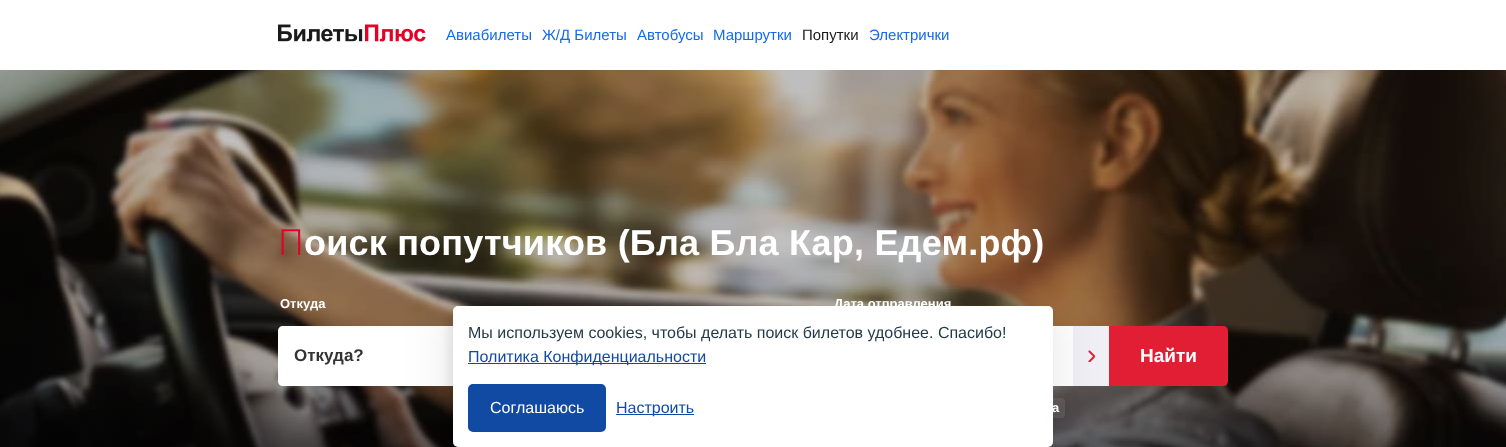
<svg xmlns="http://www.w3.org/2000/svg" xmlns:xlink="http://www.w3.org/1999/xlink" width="1506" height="447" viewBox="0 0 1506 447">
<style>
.cls-1{font:15px Liberation Sans;fill:#146aec}
.cls-2{font:15px Liberation Sans;fill:#1a1a1a}
.cls-3{font:300 36px Noto Sans;letter-spacing:0.2px;fill:#e50026}
.cls-4{font:bold 36px Liberation Sans;letter-spacing:0.2px;fill:#ffffff}
.cls-5{font:bold 13px Liberation Sans;fill:#ffffff}
.cls-6{font:bold 17px Liberation Sans;fill:#333333}
.cls-7{font:bold 19px Liberation Sans;fill:#ffffff}
.cls-8{font:16px Liberation Sans;fill:#253b48}
.cls-9{font:16px Liberation Sans;fill:#104aa3}
.cls-10{font:16px Liberation Sans;fill:#ffffff}
</style>
<rect width="100%" height="100%" fill="#ffffff"/>
<image xlink:href="image0.png" x="278" y="24" width="148" height="18"/>
<image xlink:href="image1.png" x="0" y="70" width="1506" height="377"/>
<path fill="#ffffff" d="M283 326H555V386H283C280 386 278 384 278 381V331C278 328 280 326 283 326Z"/>
<rect fill="#ffffff" x="1053" y="326" width="20" height="60"/>
<rect fill="#ffffff" fill-opacity="0.1" x="970" y="398" width="95" height="20" rx="4"/>
<rect fill="#efeff5" x="1073" y="326" width="36" height="60"/>
<image xlink:href="image2.png" x="1088" y="350" width="7" height="12"/>
<path fill="#e21e35" d="M1109 326H1223C1226 326 1228 328 1228 331V381C1228 384 1226 386 1223 386H1109Z"/>
<rect fill="#000000" fill-opacity="0.1" filter="blur(25px)" x="453" y="306" width="600" height="141" rx="5"/>
<rect fill="#000000" fill-opacity="0.07" filter="blur(5px)" x="448" y="311" width="600" height="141" rx="5"/>
<rect fill="#ffffff" x="453" y="306" width="600" height="141" rx="5"/>
<rect fill="#104aa3" x="468" y="363" width="238" height="1"/>
<rect fill="#104aa3" stroke="#104aa3" stroke-width="2" x="469" y="385" width="136" height="46" rx="4"/>
<rect fill="#104aa3" x="616" y="414" width="78" height="1"/>
<text class="cls-1" x="446" y="40">Авиабилеты</text>
<text class="cls-1" x="542" y="40">Ж/Д Билеты</text>
<text class="cls-1" x="637" y="40">Автобусы</text>
<text class="cls-1" x="713" y="40">Маршрутки</text>
<text class="cls-2" x="802" y="40">Попутки</text>
<text class="cls-1" x="869" y="40">Электрички</text>
<text class="cls-3" x="278" y="255">П</text>
<text class="cls-4" x="304" y="255">оиск попутчиков (Бла Бла Кар, Едем.рф)</text>
<text class="cls-5" x="280" y="308">Откуда</text>
<text class="cls-6" x="294" y="361">Откуда?</text>
<text class="cls-5" x="834" y="308">Дата отправления</text>
<text class="cls-5" x="1052" y="412">а</text>
<text class="cls-7" x="1140" y="362">Найти</text>
<text class="cls-8" x="468" y="338">Мы используем cookies, чтобы делать поиск билетов удобнее. Спасибо!</text>
<text class="cls-9" x="468" y="362">Политика Конфиденциальности</text>
<text class="cls-10" x="490" y="413">Соглашаюсь</text>
<text class="cls-9" x="616" y="413">Настроить</text>
</svg>
